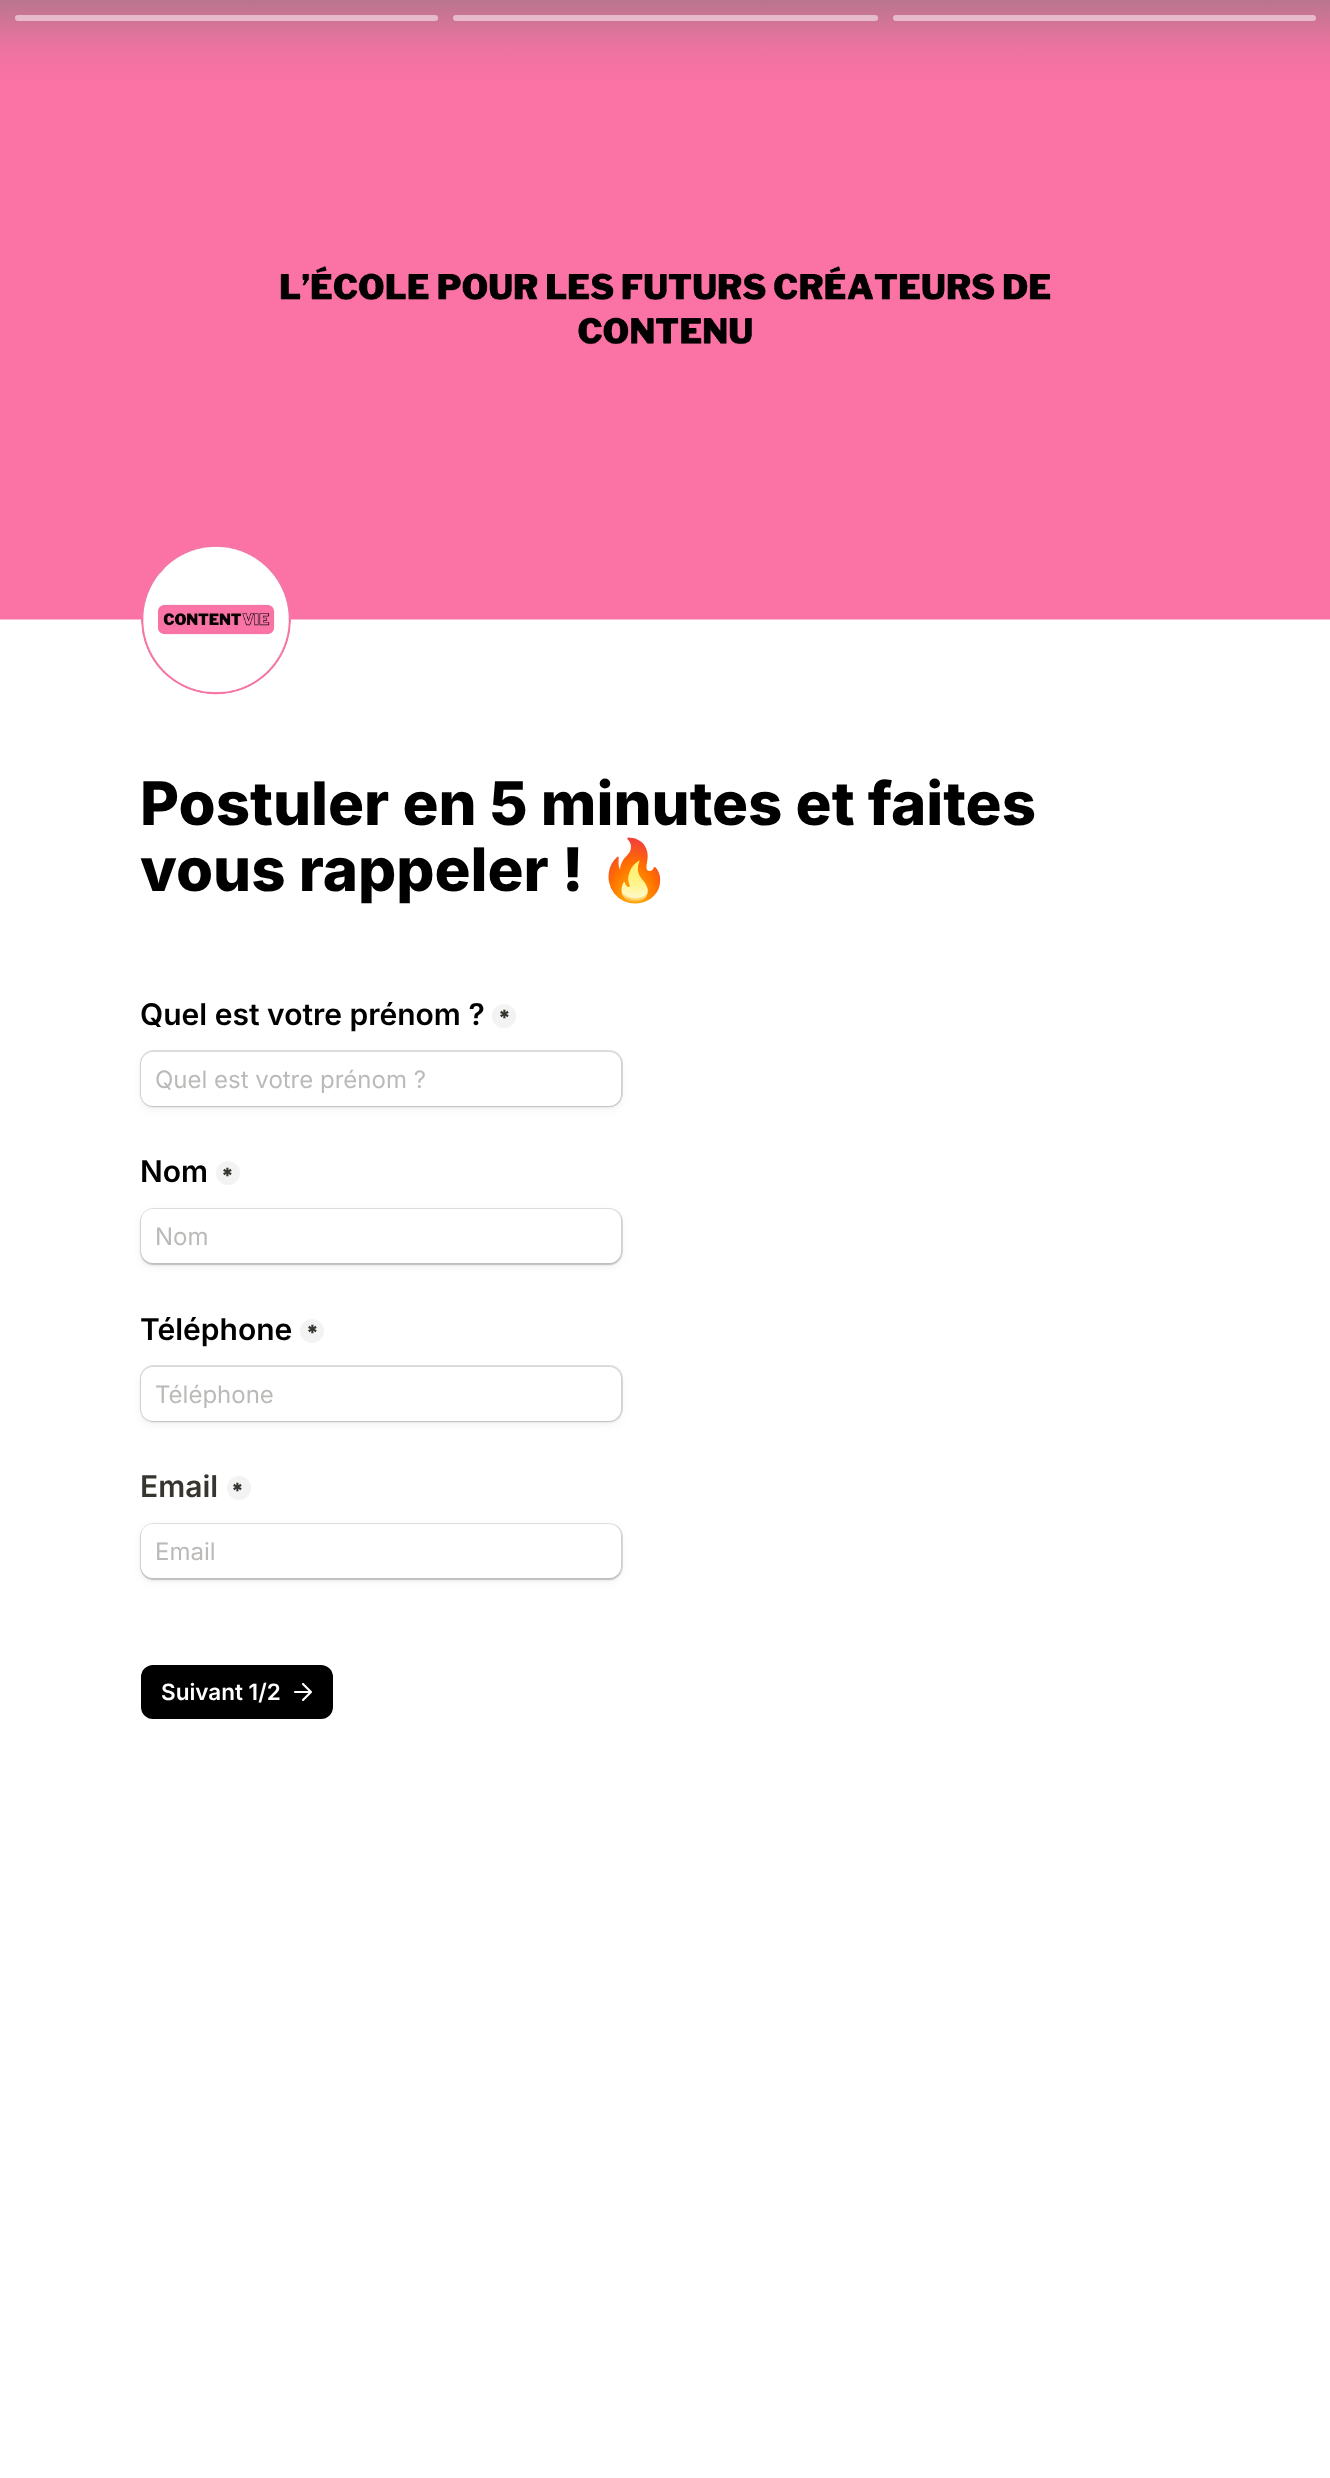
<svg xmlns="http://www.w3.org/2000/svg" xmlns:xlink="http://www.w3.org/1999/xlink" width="1330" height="2478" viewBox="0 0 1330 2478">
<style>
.cls-1{font:800 60px Inter;fill:#000000}
.cls-2{font:bold 60px Noto Color Emoji;fill:#000000}
.cls-3{font:600 30px Inter;fill:#000000}
.cls-4{font:900 21px Inter;fill:#37352f}
.cls-5{font:24px Inter;fill:#bbbab8}
.cls-6{font:600 30px Inter;fill:#37352f}
.cls-7{font:600 22.5px Inter;fill:#ffffff}
</style>
<defs>
<linearGradient id="g1" gradientUnits="userSpaceOnUse" x1="665" y1="0" x2="665" y2="81"><stop offset="0" stop-color="#b9758e"/><stop offset="0.6" stop-color="#ee73a0"/><stop offset="1" stop-color="#fb72a5"/></linearGradient>
</defs>
<rect width="100%" height="100%" fill="#ffffff"/>
<rect fill="url(#g1)" x="0" y="0" width="1330" height="81"/>
<rect fill="#ffffff" fill-opacity="0.5" x="15" y="15" width="423" height="6" rx="3"/>
<rect fill="#ffffff" fill-opacity="0.5" x="453" y="15" width="425" height="6" rx="3"/>
<rect fill="#ffffff" fill-opacity="0.5" x="893" y="15" width="423" height="6" rx="3"/>
<image xlink:href="image0.png" x="0" y="81" width="1330" height="539"/>
<image xlink:href="image1.png" x="141" y="544" width="150" height="151"/>
<circle fill="#f3f3f3" cx="504" cy="1016" r="12"/>
<rect fill="#3d3b35" fill-opacity="0.08" filter="blur(4px)" x="141" y="1055" width="480" height="54" rx="12"/>
<rect fill="none" stroke="#3d3b35" stroke-opacity="0.16" stroke-width="2" x="141" y="1051" width="481" height="55" rx="13"/>
<rect fill="#000000" fill-opacity="0.12" filter="blur(1px)" x="141" y="1053" width="480" height="54" rx="12"/>
<rect fill="#ffffff" x="141" y="1052" width="480" height="54" rx="12"/>
<circle fill="#f3f3f3" cx="228" cy="1173" r="12"/>
<rect fill="#3d3b35" fill-opacity="0.08" filter="blur(4px)" x="141" y="1212" width="480" height="54" rx="12"/>
<rect fill="none" stroke="#3d3b35" stroke-opacity="0.16" stroke-width="2" x="141" y="1209" width="481" height="55" rx="13"/>
<rect fill="#000000" fill-opacity="0.12" filter="blur(1px)" x="141" y="1211" width="480" height="54" rx="12"/>
<rect fill="#ffffff" x="141" y="1209" width="480" height="54" rx="12"/>
<circle fill="#f3f3f3" cx="312" cy="1331" r="12"/>
<rect fill="#3d3b35" fill-opacity="0.08" filter="blur(4px)" x="141" y="1370" width="480" height="54" rx="12"/>
<rect fill="none" stroke="#3d3b35" stroke-opacity="0.16" stroke-width="2" x="141" y="1366" width="481" height="55" rx="13"/>
<rect fill="#000000" fill-opacity="0.12" filter="blur(1px)" x="141" y="1368" width="480" height="54" rx="12"/>
<rect fill="#ffffff" x="141" y="1367" width="480" height="54" rx="12"/>
<circle fill="#f3f3f3" cx="239" cy="1488" r="12"/>
<rect fill="#3d3b35" fill-opacity="0.08" filter="blur(4px)" x="141" y="1527" width="480" height="54" rx="12"/>
<rect fill="none" stroke="#3d3b35" stroke-opacity="0.16" stroke-width="2" x="141" y="1524" width="481" height="55" rx="13"/>
<rect fill="#000000" fill-opacity="0.12" filter="blur(1px)" x="141" y="1526" width="480" height="54" rx="12"/>
<rect fill="#ffffff" x="141" y="1524" width="480" height="54" rx="12"/>
<rect fill="#000000" x="141" y="1665" width="192" height="54" rx="12"/>
<path fill="none" stroke="#ffffff" stroke-width="2.2" stroke-linecap="round" stroke-linejoin="round" d="M295 1692H311M303 1684L311 1692L303 1700"/>
<text class="cls-1"><tspan x="140" y="825">Postuler en 5 minutes et faites</tspan><tspan x="140" y="891">vous rappeler !</tspan></text>
<text class="cls-2" x="597" y="891">🔥</text>
<text class="cls-3" x="140" y="1025">Quel est votre prénom ?</text>
<text class="cls-4" x="498" y="1025">*</text>
<text class="cls-5" x="155" y="1088">Quel est votre prénom ?</text>
<text class="cls-3" x="140" y="1182">Nom</text>
<text class="cls-4" x="221" y="1183">*</text>
<text class="cls-5" x="155" y="1245">Nom</text>
<text class="cls-3" x="140" y="1340">Téléphone</text>
<text class="cls-4" x="306" y="1340">*</text>
<text class="cls-5" x="155" y="1403">Téléphone</text>
<text class="cls-6" x="140" y="1497">Email</text>
<text class="cls-4" x="231" y="1498">*</text>
<text class="cls-5" x="155" y="1560">Email</text>
<text class="cls-7" x="161" y="1700">Suivant 1/2</text>
</svg>
